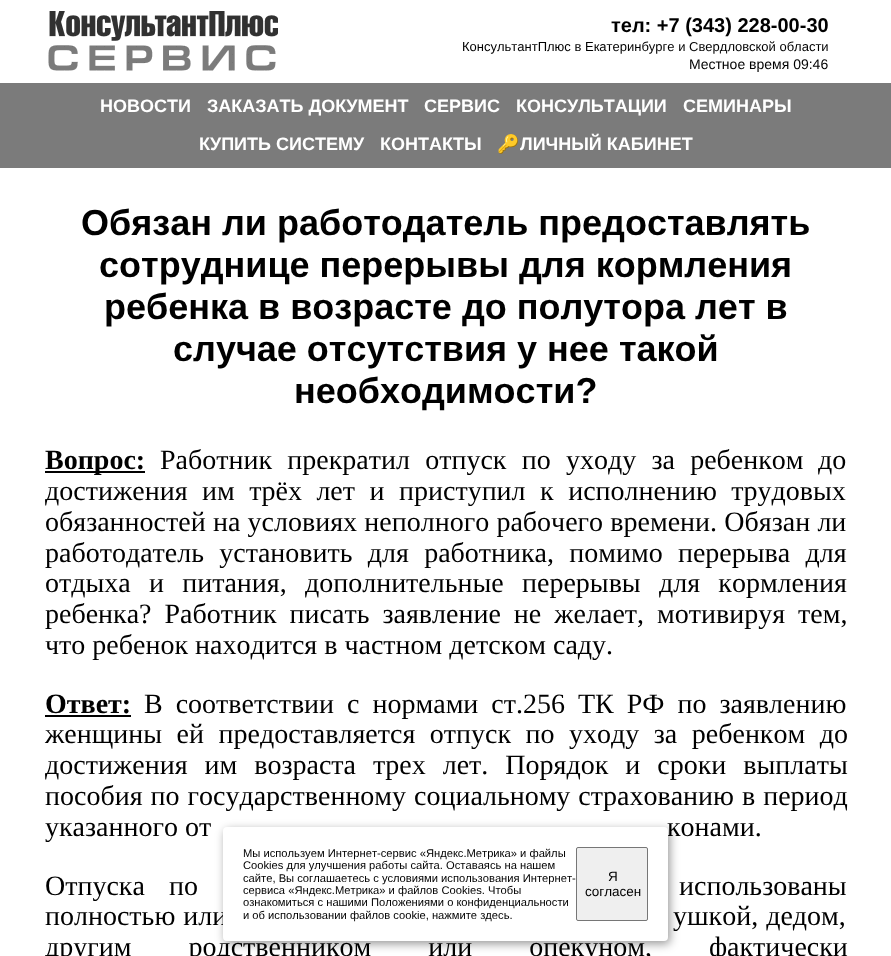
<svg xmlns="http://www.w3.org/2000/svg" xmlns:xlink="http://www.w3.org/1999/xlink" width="891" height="956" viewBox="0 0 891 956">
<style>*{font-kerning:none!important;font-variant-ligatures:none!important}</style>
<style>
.cls-1{font:bold 20px Liberation Sans;fill:#000000}
.cls-2{font:13px Liberation Sans;fill:#000000}
.cls-3{font:14px Liberation Sans;fill:#000000}
.cls-4{font:bold 18px Liberation Sans;fill:#ffffff}
.cls-5{font:bold 18px Noto Color Emoji;fill:#ffffff}
.cls-6{font:bold 36px Liberation Sans;fill:#000000}
.cls-7{font:bold 28px Liberation Serif;fill:#000000}
.cls-8{font:28px Liberation Serif;fill:#000000}
.cls-9{font:11.2px Liberation Sans;fill:#000000}
.cls-10{font:13.5px Liberation Sans;fill:#000000}
</style>
<rect width="100%" height="100%" fill="#ffffff"/>
<image xlink:href="image0.png" x="48" y="11" width="230" height="60"/>
<rect fill="#7b7b7b" x="0" y="83" width="891" height="85"/>
<rect fill="#000000" x="45" y="471" width="100" height="2"/>
<rect fill="#000000" x="45" y="715" width="86" height="2"/>
<rect fill="#000000" fill-opacity="0.4" filter="blur(5px)" x="225" y="830" width="445" height="114" rx="4"/>
<text class="cls-1" x="611" y="32">тел: +7 (343) 228-00-30</text>
<text class="cls-2" x="462" y="51">КонсультантПлюс в Екатеринбурге и Свердловской области</text>
<text class="cls-3" x="689" y="69">Местное время 09:46</text>
<text class="cls-4" x="100" y="112">НОВОСТИ</text>
<text class="cls-4" x="207" y="112">ЗАКАЗАТЬ ДОКУМЕНТ</text>
<text class="cls-4" x="424" y="112">СЕРВИС</text>
<text class="cls-4" x="516" y="112">КОНСУЛЬТАЦИИ</text>
<text class="cls-4" x="683" y="112">СЕМИНАРЫ</text>
<text class="cls-4" x="199" y="150">КУПИТЬ СИСТЕМУ</text>
<text class="cls-4" x="380" y="150">КОНТАКТЫ</text>
<text class="cls-5" x="497" y="150">🔑</text>
<text class="cls-4" x="520" y="150">ЛИЧНЫЙ КАБИНЕТ</text>
<text class="cls-6" x="81" y="235">Обязан ли работодатель предоставлять</text>
<text class="cls-6" x="99" y="277">сотруднице перерывы для кормления</text>
<text class="cls-6" x="104" y="319">ребенка в возрасте до полутора лет в</text>
<text class="cls-6" x="173" y="361">случае отсутствия у нее такой</text>
<text class="cls-6" x="294" y="403">необходимости?</text>
<text class="cls-7" x="45" y="469">Вопрос:</text>
<text class="cls-8" x="160" y="469" word-spacing="8.25">Работник прекратил отпуск по уходу за ребенком</text>
<text class="cls-8" x="818" y="469" word-spacing="8.25">до</text>
<text class="cls-8"><tspan x="45" y="500" word-spacing="7.5">достижения им трёх лет и приступил к исполнению трудовых</tspan><tspan x="45" y="531" word-spacing="0.25">обязанностей на условиях неполного рабочего времени. Обязан ли</tspan><tspan x="45" y="562" word-spacing="8.25">работодатель установить для работника, помимо перерыва для</tspan><tspan x="45" y="592" word-spacing="11.25">отдыха и питания, дополнительные перерывы для кормления</tspan><tspan x="45" y="623" word-spacing="6">ребенка? Работник писать заявление не желает, мотивируя тем,</tspan><tspan x="45" y="654">что ребенок находится в частном детском саду.</tspan></text>
<text class="cls-7" x="45" y="713">Ответ:</text>
<text class="cls-8" x="144" y="713" word-spacing="6">В соответствии с нормами ст.256 ТК РФ по заявлению</text>
<text class="cls-8"><tspan x="45" y="743" word-spacing="7.5">женщины ей предоставляется отпуск по уходу за ребенком до</tspan><tspan x="45" y="774" word-spacing="10">достижения им возраста трех лет. Порядок и сроки выплаты</tspan><tspan x="45" y="805" word-spacing="1">пособия по государственному социальному страхованию в период</tspan><tspan x="45" y="836">указанного от</tspan></text>
<text class="cls-8" x="667" y="836">конами.</text>
<text class="cls-8" x="45" y="895" word-spacing="17">Отпуска по</text>
<text class="cls-8" x="679" y="895" word-spacing="17">использованы</text>
<text class="cls-8" x="45" y="925" word-spacing="1">полностью или</text>
<text class="cls-8" x="673" y="925" word-spacing="1">ушкой, дедом,</text>
<text class="cls-8" x="45" y="956" word-spacing="50">другим родственником или опекуном, фактически</text>
<rect fill="#ffffff" x="223" y="827" width="445" height="114" rx="4"/>
<text class="cls-9"><tspan x="243" y="857">Мы используем Интернет-сервис «Яндекс.Метрика» и файлы</tspan><tspan x="243" y="869">Cookies для улучшения работы сайта. Оставаясь на нашем</tspan><tspan x="243" y="882">сайте, Вы соглашаетесь с условиями использования Интернет-</tspan><tspan x="243" y="894">сервиса «Яндекс.Метрика» и файлов Cookies. Чтобы</tspan><tspan x="243" y="906">ознакомиться с нашими Положениями о конфиденциальности</tspan><tspan x="243" y="919">и об использовании файлов cookie, нажмите здесь.</tspan></text>
<rect fill="#efefef" stroke="#767676" x="576.5" y="847.5" width="71" height="73" rx="1.5"/>
<text class="cls-10" x="608" y="881">Я</text>
<text class="cls-10" x="585" y="896">согласен</text>
</svg>
